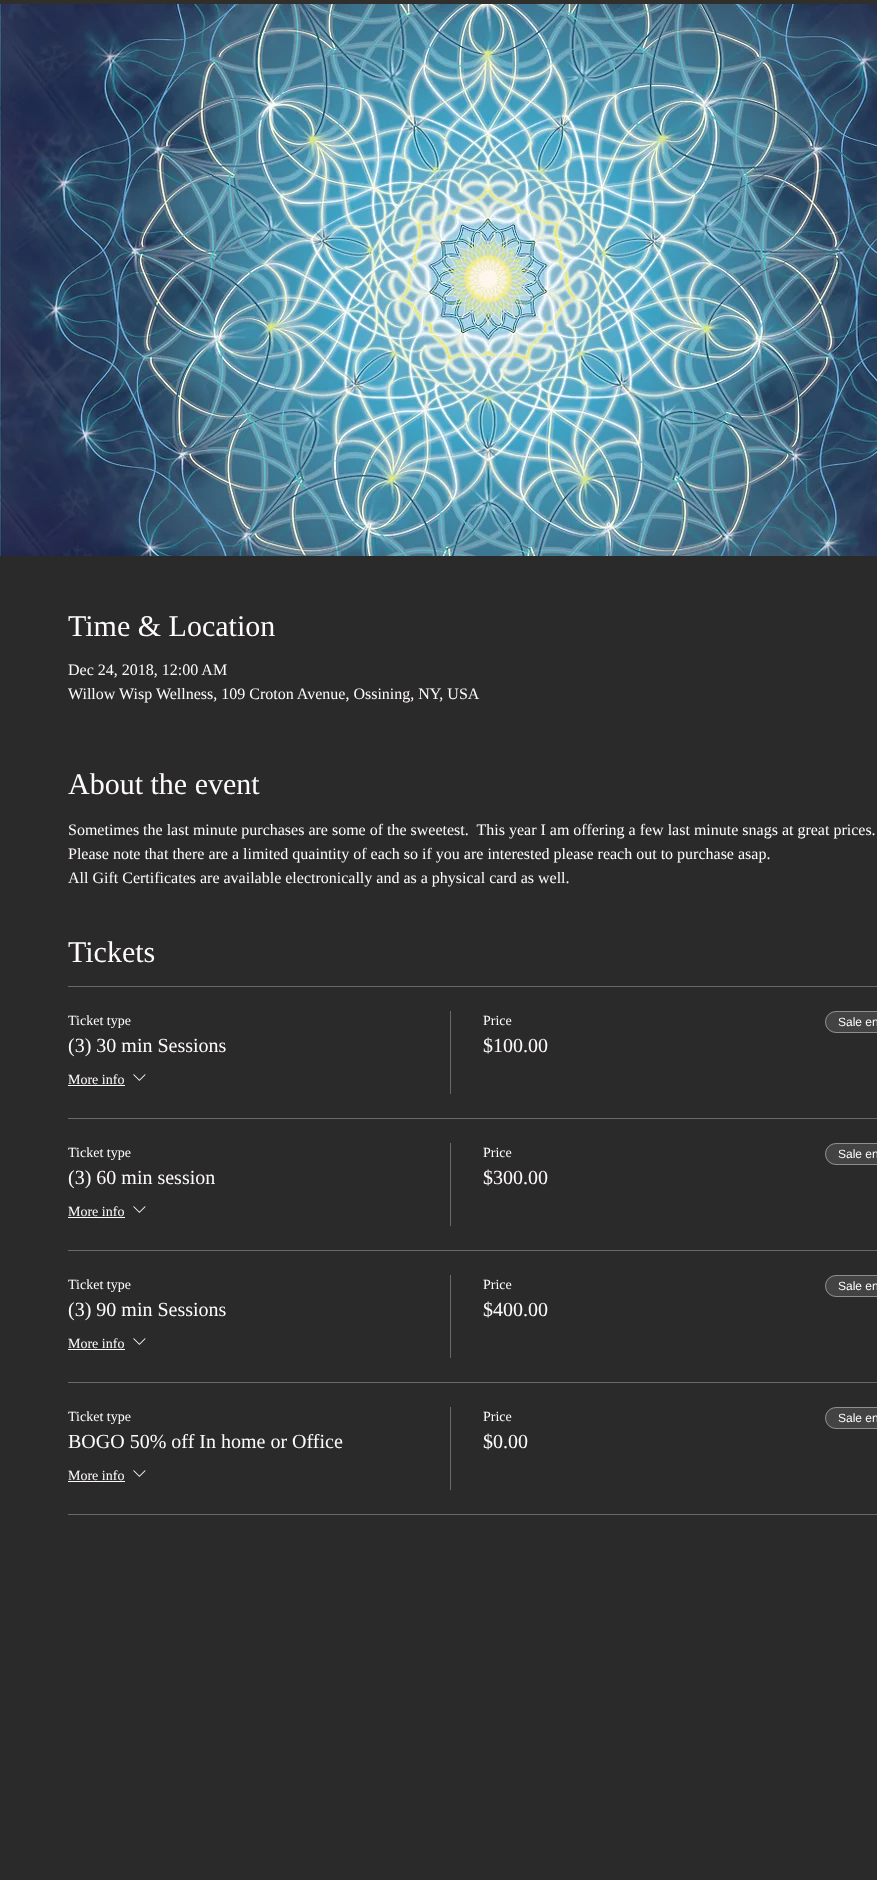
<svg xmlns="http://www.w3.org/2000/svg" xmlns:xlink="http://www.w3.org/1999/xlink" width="877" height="1880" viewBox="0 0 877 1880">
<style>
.cls-1{font:30px Liberation Serif;fill:#fffbfb}
.cls-2{font:16px Liberation Serif;fill:#fffbfb}
.cls-3{font:14px Liberation Serif;fill:#fffbfb}
.cls-4{font:20px Liberation Serif;fill:#fffbfb}
.cls-5{font:12px Liberation Sans;fill:#fffbfb}
</style>
<rect width="100%" height="100%" fill="#2a2a2a"/>
<rect fill="#312f2b" x="0" y="0" width="877" height="4"/>
<image xlink:href="image0.png" x="0" y="4" width="877" height="552"/>
<rect fill="#6a6969" x="68" y="986" width="809" height="1"/>
<rect fill="#6a6969" x="68" y="1118" width="809" height="1"/>
<rect fill="#fffbfb" x="68" y="1085" width="57" height="1"/>
<image xlink:href="image1.png" x="133" y="1074" width="13" height="7"/>
<rect fill="#6a6969" x="450" y="1011" width="1" height="83"/>
<rect fill="#444343" x="825" y="1011" width="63" height="22" rx="11"/>
<rect fill="none" stroke="#ffffff" stroke-opacity="0.4" x="825.5" y="1011.5" width="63" height="21" rx="10.5"/>
<rect fill="#6a6969" x="68" y="1250" width="809" height="1"/>
<rect fill="#fffbfb" x="68" y="1217" width="57" height="1"/>
<image xlink:href="image1.png" x="133" y="1206" width="13" height="7"/>
<rect fill="#6a6969" x="450" y="1143" width="1" height="83"/>
<rect fill="#444343" x="825" y="1143" width="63" height="22" rx="11"/>
<rect fill="none" stroke="#ffffff" stroke-opacity="0.4" x="825.5" y="1143.5" width="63" height="21" rx="10.5"/>
<rect fill="#6a6969" x="68" y="1382" width="809" height="1"/>
<rect fill="#fffbfb" x="68" y="1349" width="57" height="1"/>
<image xlink:href="image1.png" x="133" y="1338" width="13" height="7"/>
<rect fill="#6a6969" x="450" y="1275" width="1" height="83"/>
<rect fill="#444343" x="825" y="1275" width="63" height="22" rx="11"/>
<rect fill="none" stroke="#ffffff" stroke-opacity="0.4" x="825.5" y="1275.5" width="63" height="21" rx="10.5"/>
<rect fill="#6a6969" x="68" y="1514" width="809" height="1"/>
<rect fill="#fffbfb" x="68" y="1481" width="57" height="1"/>
<image xlink:href="image1.png" x="133" y="1470" width="13" height="7"/>
<rect fill="#6a6969" x="450" y="1407" width="1" height="83"/>
<rect fill="#444343" x="825" y="1407" width="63" height="22" rx="11"/>
<rect fill="none" stroke="#ffffff" stroke-opacity="0.4" x="825.5" y="1407.5" width="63" height="21" rx="10.5"/>
<text class="cls-1" x="68" y="636">Time &amp; Location</text>
<text class="cls-2"><tspan x="68" y="675">Dec 24, 2018, 12:00 AM</tspan><tspan x="68" y="699">Willow Wisp Wellness, 109 Croton Avenue, Ossining, NY, USA</tspan></text>
<text class="cls-1" x="68" y="794">About the event</text>
<text class="cls-2" xml:space="preserve"><tspan x="68" y="835">Sometimes the last minute purchases are some of the sweetest.  This year I am offering a few last minute snags at great prices.</tspan><tspan x="68" y="859">Please note that there are a limited quaintity of each so if you are interested please reach out to purchase asap.</tspan><tspan x="68" y="883">All Gift Certificates are available electronically and as a physical card as well.</tspan></text>
<text class="cls-1" x="68" y="962">Tickets</text>
<text class="cls-3" x="68" y="1025">Ticket type</text>
<text class="cls-4" x="68" y="1052">(3) 30 min Sessions</text>
<text class="cls-3" x="68" y="1084">More info</text>
<text class="cls-3" x="483" y="1025">Price</text>
<text class="cls-4" x="483" y="1052">$100.00</text>
<text class="cls-5" x="838" y="1026">Sale en</text>
<text class="cls-3" x="68" y="1157">Ticket type</text>
<text class="cls-4" x="68" y="1184">(3) 60 min session</text>
<text class="cls-3" x="68" y="1216">More info</text>
<text class="cls-3" x="483" y="1157">Price</text>
<text class="cls-4" x="483" y="1184">$300.00</text>
<text class="cls-5" x="838" y="1158">Sale en</text>
<text class="cls-3" x="68" y="1289">Ticket type</text>
<text class="cls-4" x="68" y="1316">(3) 90 min Sessions</text>
<text class="cls-3" x="68" y="1348">More info</text>
<text class="cls-3" x="483" y="1289">Price</text>
<text class="cls-4" x="483" y="1316">$400.00</text>
<text class="cls-5" x="838" y="1290">Sale en</text>
<text class="cls-3" x="68" y="1421">Ticket type</text>
<text class="cls-4" x="68" y="1448">BOGO 50% off In home or Office</text>
<text class="cls-3" x="68" y="1480">More info</text>
<text class="cls-3" x="483" y="1421">Price</text>
<text class="cls-4" x="483" y="1448">$0.00</text>
<text class="cls-5" x="838" y="1422">Sale en</text>
</svg>
